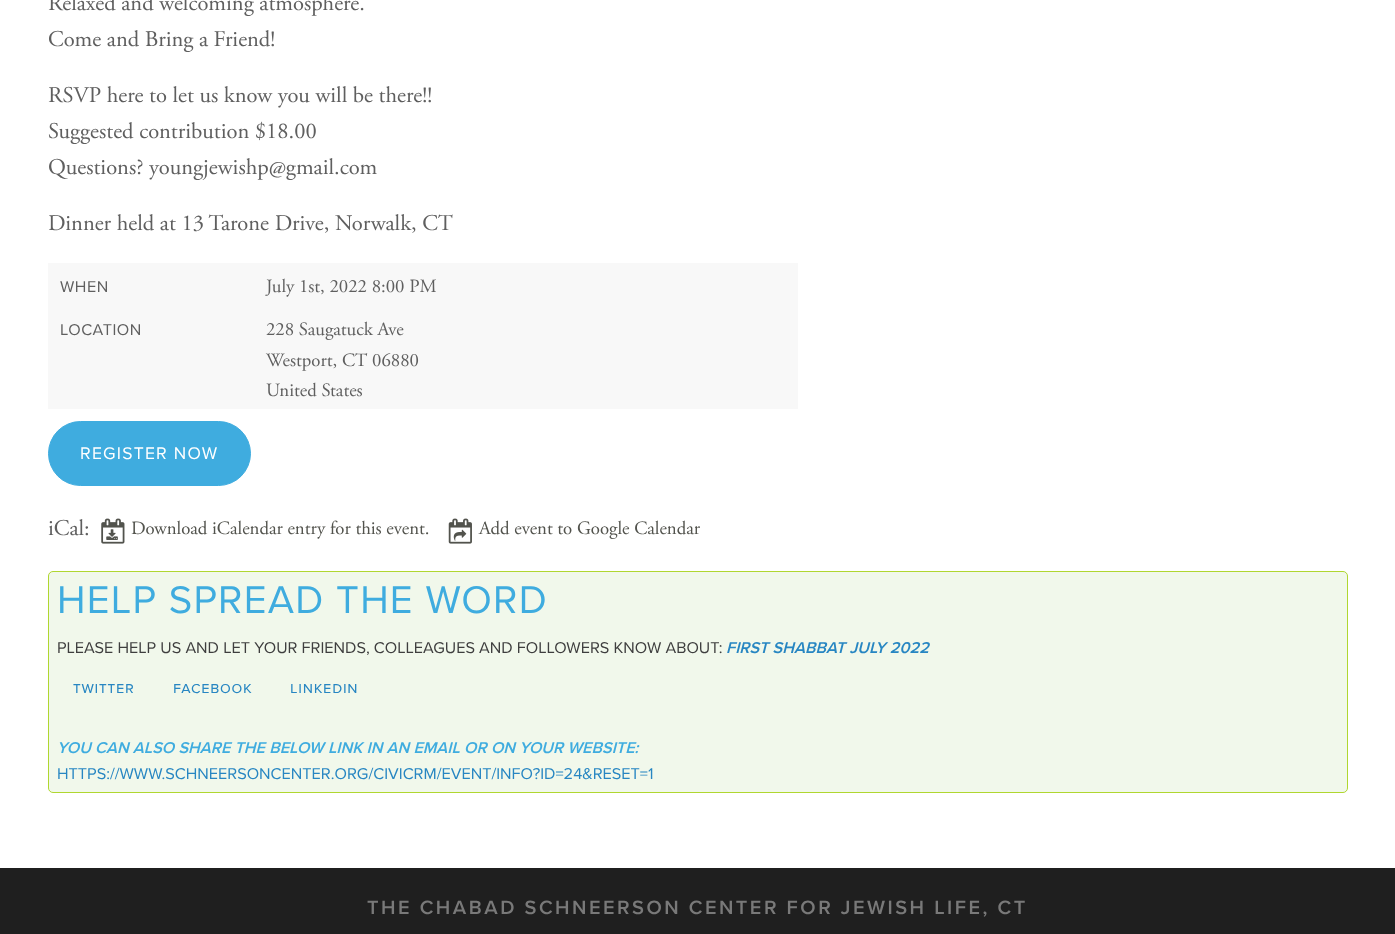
<svg xmlns="http://www.w3.org/2000/svg" xmlns:xlink="http://www.w3.org/1999/xlink" width="1395" height="934" viewBox="0 0 1395 934">
<style>
.cls-1{font:22.5px Adobe Garamond;fill:#5f5f5f}
.cls-2{font:16.25px Proxima Nova;letter-spacing:0.5px;fill:#5f5f5f}
.cls-3{font:18.75px Adobe Garamond;fill:#5f5f5f}
.cls-4{font:17.5px Proxima Nova;letter-spacing:1.25px;fill:#ffffff}
.cls-5{font:18.75px Adobe Garamond;fill:#52534d}
.cls-6{font:40px Proxima Nova;letter-spacing:1.25px;fill:#3facdf}
.cls-7{font:16.25px Proxima Nova;fill:#3e3e3e}
.cls-8{font:italic 600 16.25px Proxima Nova;fill:#2786c2}
.cls-9{font:16.25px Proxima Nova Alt;letter-spacing:0.75px;fill:#2786c2}
.cls-10{font:italic 600 16.25px Proxima Nova;fill:#3facdf}
.cls-11{font:16.25px Proxima Nova;fill:#2786c2}
.cls-12{font:600 20px Proxima Nova;letter-spacing:2.5px;fill:#797979}
</style>
<rect width="100%" height="100%" fill="#ffffff"/>
<rect fill="#f8f8f8" x="48" y="263" width="750" height="146"/>
<rect fill="#3facdf" stroke="#3facdf" x="48.5" y="421.5" width="202" height="64" rx="32"/>
<image xlink:href="image0.png" x="101" y="518" width="24" height="26"/>
<image xlink:href="image1.png" x="106" y="529" width="12" height="11"/>
<image xlink:href="image2.png" x="448" y="518" width="24" height="26"/>
<image xlink:href="image3.png" x="453" y="529" width="14" height="12"/>
<rect fill="#f1f8eb" stroke="#b0d730" x="48.5" y="571.5" width="1299" height="221" rx="4.5"/>
<rect fill="#1f1f1f" x="0" y="868" width="1395" height="66"/>
<text class="cls-1"><tspan x="48" y="10">Relaxed and welcoming atmosphere.</tspan><tspan x="48" y="46">Come and Bring a Friend!</tspan></text>
<text class="cls-1"><tspan x="48" y="102">RSVP here to let us know you will be there!!</tspan><tspan x="48" y="138">Suggested contribution $18.00</tspan><tspan x="48" y="174">Questions? youngjewishp@gmail.com</tspan></text>
<text class="cls-1" x="48" y="230">Dinner held at 13 Tarone Drive, Norwalk, CT</text>
<text class="cls-2" x="60" y="292">WHEN</text>
<text class="cls-3" x="266" y="292">July 1st, 2022 8:00 PM</text>
<text class="cls-2" x="60" y="335">LOCATION</text>
<text class="cls-3"><tspan x="266" y="335">228 Saugatuck Ave</tspan><tspan x="266" y="366">Westport, CT 06880</tspan><tspan x="266" y="396">United States</tspan></text>
<text class="cls-4" x="80" y="459">REGISTER NOW</text>
<text class="cls-1" x="48" y="535">iCal:</text>
<text class="cls-5" x="131" y="534">Download iCalendar entry for this event.</text>
<text class="cls-5" x="479" y="534">Add event to Google Calendar</text>
<text class="cls-6" x="57" y="613">HELP SPREAD THE WORD</text>
<text class="cls-7" x="57" y="653">PLEASE HELP US AND LET YOUR FRIENDS, COLLEAGUES AND FOLLOWERS KNOW ABOUT:</text>
<text class="cls-8" x="726" y="653">FIRST SHABBAT JULY 2022</text>
<text class="cls-9" x="73" y="693">TWITTER</text>
<text class="cls-9" x="173" y="693">FACEBOOK</text>
<text class="cls-9" x="290" y="693">LINKEDIN</text>
<text class="cls-10" x="57" y="753">YOU CAN ALSO SHARE THE BELOW LINK IN AN EMAIL OR ON YOUR WEBSITE:</text>
<text class="cls-11" x="57" y="779">HTTPS://WWW.SCHNEERSONCENTER.ORG/CIVICRM/EVENT/INFO?ID=24&amp;RESET=1</text>
<text class="cls-12" x="367" y="914">THE CHABAD SCHNEERSON CENTER FOR JEWISH LIFE, CT</text>
</svg>
